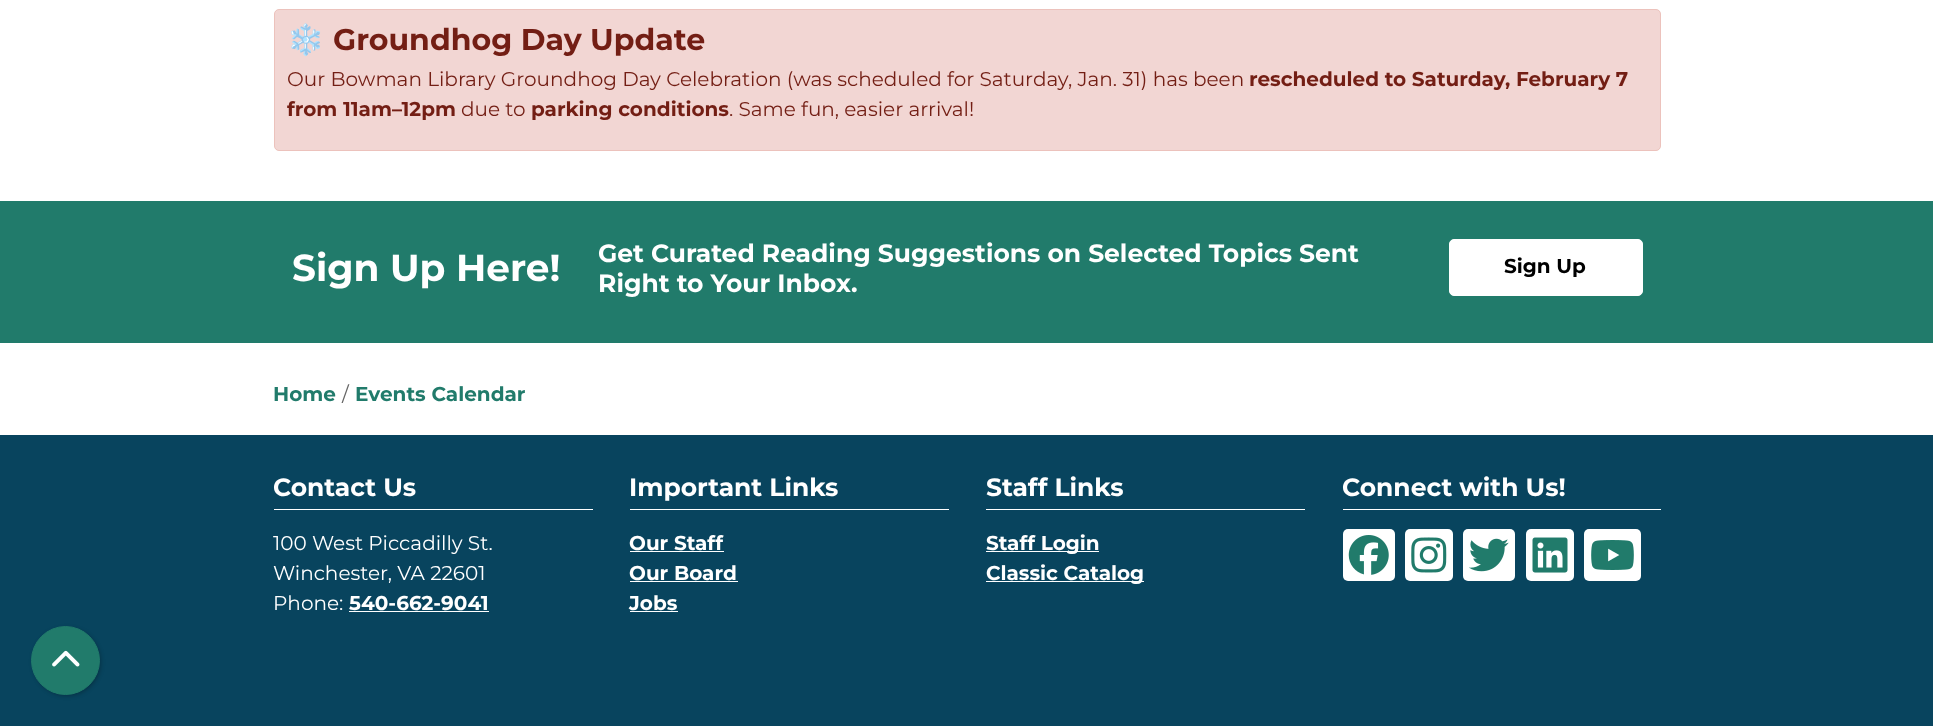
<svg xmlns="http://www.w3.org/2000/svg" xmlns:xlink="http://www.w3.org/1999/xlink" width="1933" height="726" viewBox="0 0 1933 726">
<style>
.cls-1{font:bold 30px Noto Color Emoji;fill:#731e14}
.cls-2{font:bold 30px Montserrat;fill:#731e14}
.cls-3{font:20px Montserrat;fill:#731e14}
.cls-4{font:bold 20px Montserrat;fill:#731e14}
.cls-5{font:bold 37.5px Montserrat;fill:#ffffff}
.cls-6{font:bold 25px Montserrat;fill:#ffffff}
.cls-7{font:bold 20px Montserrat;fill:#000000}
.cls-8{font:bold 20px Montserrat;fill:#217b6b}
.cls-9{font:20px Montserrat;fill:#666666}
.cls-10{font:20px Montserrat;fill:#ffffff}
.cls-11{font:bold 20px Montserrat;fill:#ffffff}
</style>
<rect width="100%" height="100%" fill="#ffffff"/>
<rect fill="#f2d6d3" stroke="#ecc2bc" x="274.5" y="9.5" width="1386" height="141" rx="4.5"/>
<rect fill="#217b6b" x="0" y="201" width="1933" height="142"/>
<rect fill="#ffffff" stroke="#ffffff" x="1449.5" y="239.5" width="193" height="56" rx="4.5"/>
<rect fill="#08445e" x="0" y="435" width="1933" height="291"/>
<rect fill="#ffffff" x="274" y="509" width="319" height="1"/>
<rect fill="#ffffff" x="349" y="611" width="140" height="1"/>
<rect fill="#ffffff" x="630" y="509" width="319" height="1"/>
<rect fill="#ffffff" x="630" y="551" width="94" height="1"/>
<rect fill="#ffffff" x="630" y="581" width="108" height="1"/>
<rect fill="#ffffff" x="630" y="611" width="48" height="1"/>
<rect fill="#ffffff" x="986" y="509" width="319" height="1"/>
<rect fill="#ffffff" x="986" y="551" width="113" height="1"/>
<rect fill="#ffffff" x="986" y="581" width="158" height="1"/>
<rect fill="#ffffff" x="1343" y="509" width="318" height="1"/>
<rect fill="#ffffff" x="1343" y="529" width="52" height="52" rx="5"/>
<image xlink:href="image0.png" x="1348" y="535" width="41" height="40"/>
<rect fill="#ffffff" x="1405" y="529" width="48" height="52" rx="5"/>
<image xlink:href="image1.png" x="1411" y="537" width="36" height="36"/>
<rect fill="#ffffff" x="1463" y="529" width="52" height="52" rx="5"/>
<image xlink:href="image2.png" x="1469" y="538" width="40" height="34"/>
<rect fill="#ffffff" x="1526" y="529" width="48" height="52" rx="5"/>
<image xlink:href="image3.png" x="1532" y="537" width="36" height="36"/>
<rect fill="#ffffff" x="1584" y="529" width="57" height="52" rx="5"/>
<image xlink:href="image4.png" x="1591" y="540" width="43" height="30"/>
<rect fill="#000000" fill-opacity="0.25" filter="blur(2px)" x="33" y="628" width="68" height="68" rx="34"/>
<circle fill="#217b6b" stroke="#217b6b" cx="65.5" cy="660.5" r="34"/>
<image xlink:href="image5.png" x="52" y="650" width="28" height="17"/>
<text class="cls-1" x="287" y="50">❄️</text>
<text class="cls-2" x="333" y="50">Groundhog Day Update</text>
<text class="cls-3" x="287" y="86">Our Bowman Library Groundhog Day Celebration (was scheduled for Saturday, Jan. 31) has been</text>
<text class="cls-4" x="1249" y="86">rescheduled to Saturday, February 7</text>
<text class="cls-4" x="287" y="116">from 11am–12pm</text>
<text class="cls-3" x="461" y="116">due to</text>
<text class="cls-4" x="531" y="116">parking conditions</text>
<text class="cls-3" x="729" y="116">. Same fun, easier arrival!</text>
<text class="cls-5" x="292" y="281">Sign Up Here!</text>
<text class="cls-6"><tspan x="598" y="262">Get Curated Reading Suggestions on Selected Topics Sent</tspan><tspan x="598" y="292">Right to Your Inbox.</tspan></text>
<text class="cls-7" x="1504" y="273">Sign Up</text>
<text class="cls-8" x="273" y="401">Home</text>
<text class="cls-9" x="342" y="401">/</text>
<text class="cls-8" x="355" y="401">Events Calendar</text>
<text class="cls-6" x="273" y="496">Contact Us</text>
<text class="cls-10"><tspan x="273" y="550">100 West Piccadilly St.</tspan><tspan x="273" y="580">Winchester, VA 22601</tspan><tspan x="273" y="610">Phone:</tspan></text>
<text class="cls-11" x="349" y="610">540-662-9041</text>
<text class="cls-6" x="629" y="496">Important Links</text>
<text class="cls-11"><tspan x="629" y="550">Our Staff</tspan><tspan x="629" y="580">Our Board</tspan><tspan x="629" y="610">Jobs</tspan></text>
<text class="cls-6" x="986" y="496">Staff Links</text>
<text class="cls-11"><tspan x="986" y="550">Staff Login</tspan><tspan x="986" y="580">Classic Catalog</tspan></text>
<text class="cls-6" x="1342" y="496">Connect with Us!</text>
</svg>
